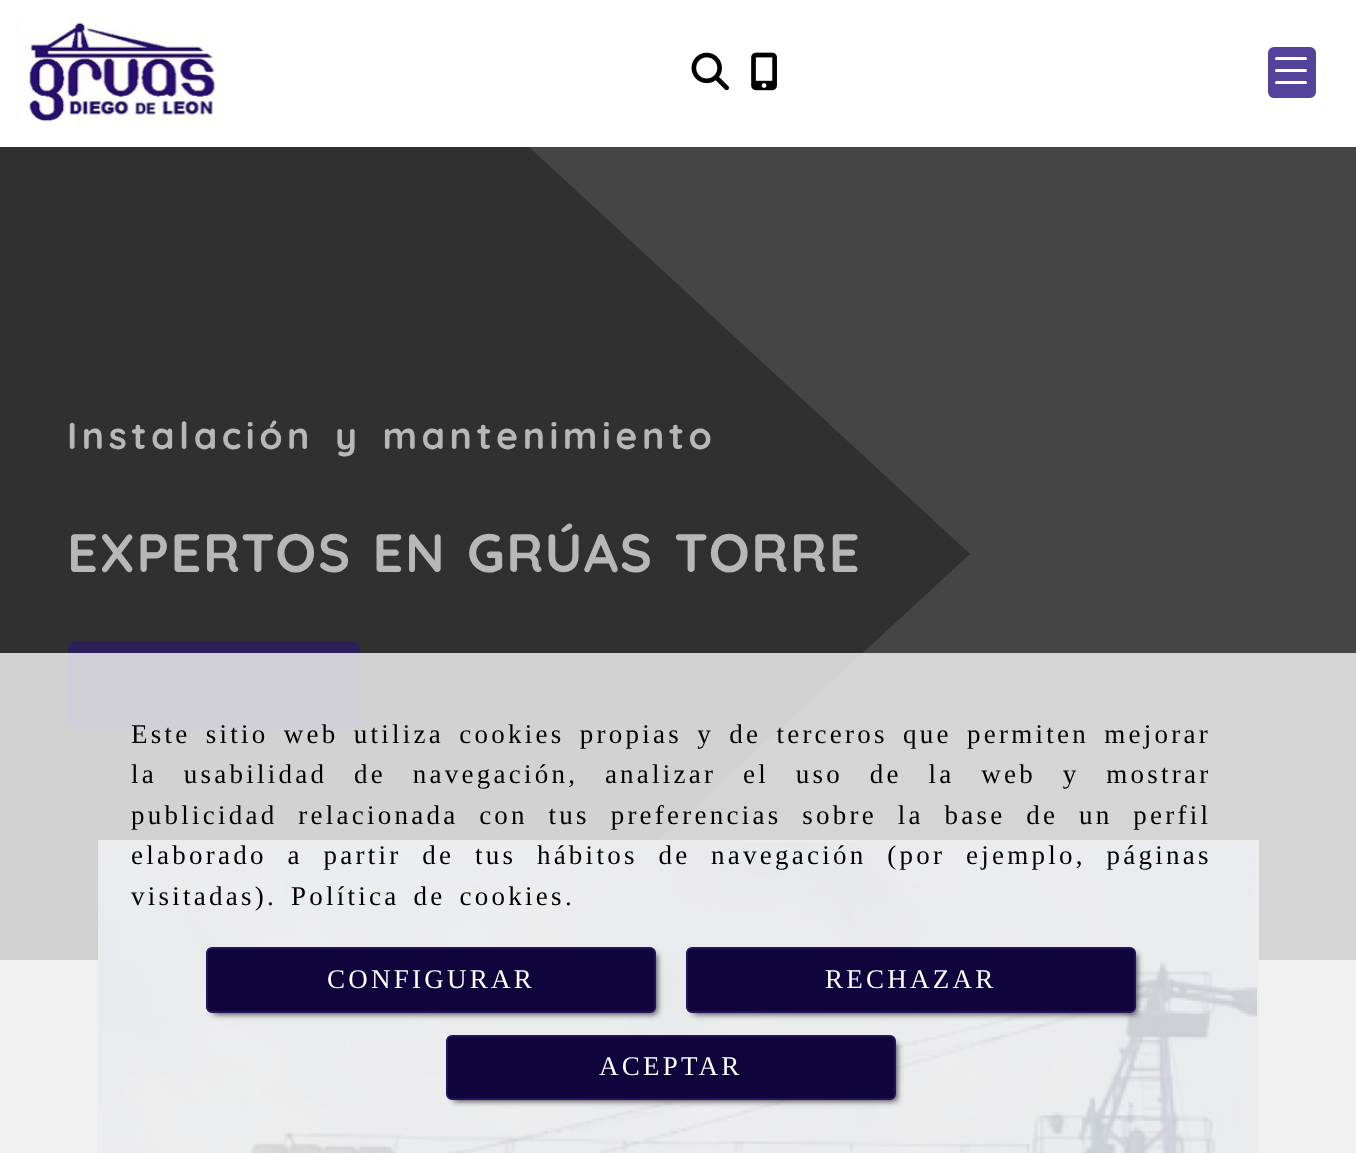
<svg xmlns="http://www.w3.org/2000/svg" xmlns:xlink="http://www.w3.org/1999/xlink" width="1356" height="1153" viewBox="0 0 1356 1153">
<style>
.cls-1{font:bold 37.5px Quicksand;letter-spacing:4.5px;fill:#b7b7b7}
.cls-2{font:bold 54px Quicksand;letter-spacing:1.6px;fill:#b7b7b7}
.cls-3{font:27px Liberation Serif;letter-spacing:3.25px;fill:#000000}
.cls-4{font:27px Liberation Serif;letter-spacing:3.25px;fill:#ffffff}
</style>
<rect width="100%" height="100%" fill="#ffffff"/>
<image xlink:href="image0.png" x="16" y="15" width="209" height="107"/>
<image xlink:href="image1.png" x="691" y="52" width="38" height="39"/>
<image xlink:href="image2.png" x="751" y="52" width="26" height="39"/>
<rect fill="#55429a" x="1268" y="47" width="48" height="51" rx="6"/>
<rect fill="#ffffff" x="1275" y="69" width="32" height="3" rx="1.5"/>
<rect fill="#ffffff" x="1275" y="57" width="32" height="3" rx="1.5"/>
<rect fill="#ffffff" x="1275" y="81" width="32" height="3" rx="1.5"/>
<rect fill="#454545" x="529" y="147" width="827" height="813"/>
<path fill="#303030" d="M0 147H529L970 554L529 960H0Z"/>
<rect fill="#2c205a" x="68" y="642" width="292" height="87" rx="6"/>
<rect fill="none" stroke="#dddddd" stroke-width="2" x="99" y="841" width="1159" height="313"/>
<image xlink:href="image3.png" x="99" y="841" width="1158" height="312"/>
<rect fill="#eeeeee" fill-opacity="0.85" x="0" y="653" width="1356" height="500"/>
<rect fill="#000000" fill-opacity="0.75" filter="blur(3px)" x="213" y="954" width="444" height="60" rx="3"/>
<rect fill="#0f043c" stroke="#22135c" stroke-width="2" x="207" y="948" width="448" height="64" rx="5"/>
<rect fill="#000000" fill-opacity="0.75" filter="blur(3px)" x="693" y="954" width="444" height="60" rx="3"/>
<rect fill="#0f043c" stroke="#22135c" stroke-width="2" x="687" y="948" width="448" height="64" rx="5"/>
<rect fill="#000000" fill-opacity="0.75" filter="blur(3px)" x="453" y="1043" width="444" height="58" rx="3"/>
<rect fill="#0f043c" stroke="#22135c" stroke-width="2" x="447" y="1036" width="448" height="63" rx="5"/>
<text class="cls-1" x="67" y="449" word-spacing="6">Instalación y mantenimiento</text>
<text class="cls-2" x="67" y="572" word-spacing="4">EXPERTOS EN GRÚAS TORRE</text>
<text class="cls-3"><tspan x="131" y="743" word-spacing="5.25">Este sitio web utiliza cookies propias y de terceros que permiten mejorar</tspan><tspan x="131" y="783" word-spacing="16.75">la usabilidad de navegación, analizar el uso de la web y mostrar</tspan><tspan x="131" y="824" word-spacing="10.75">publicidad relacionada con tus preferencias sobre la base de un perfil</tspan><tspan x="131" y="864" word-spacing="10.75">elaborado a partir de tus hábitos de navegación (por ejemplo, páginas</tspan><tspan x="131" y="905">visitadas).</tspan></text>
<text class="cls-3" x="291" y="905" word-spacing="4">Política de cookies</text>
<text class="cls-3" x="565" y="905">.</text>
<text class="cls-4" x="327" y="988">CONFIGURAR</text>
<text class="cls-4" x="825" y="988">RECHAZAR</text>
<text class="cls-4" x="599" y="1075">ACEPTAR</text>
</svg>
